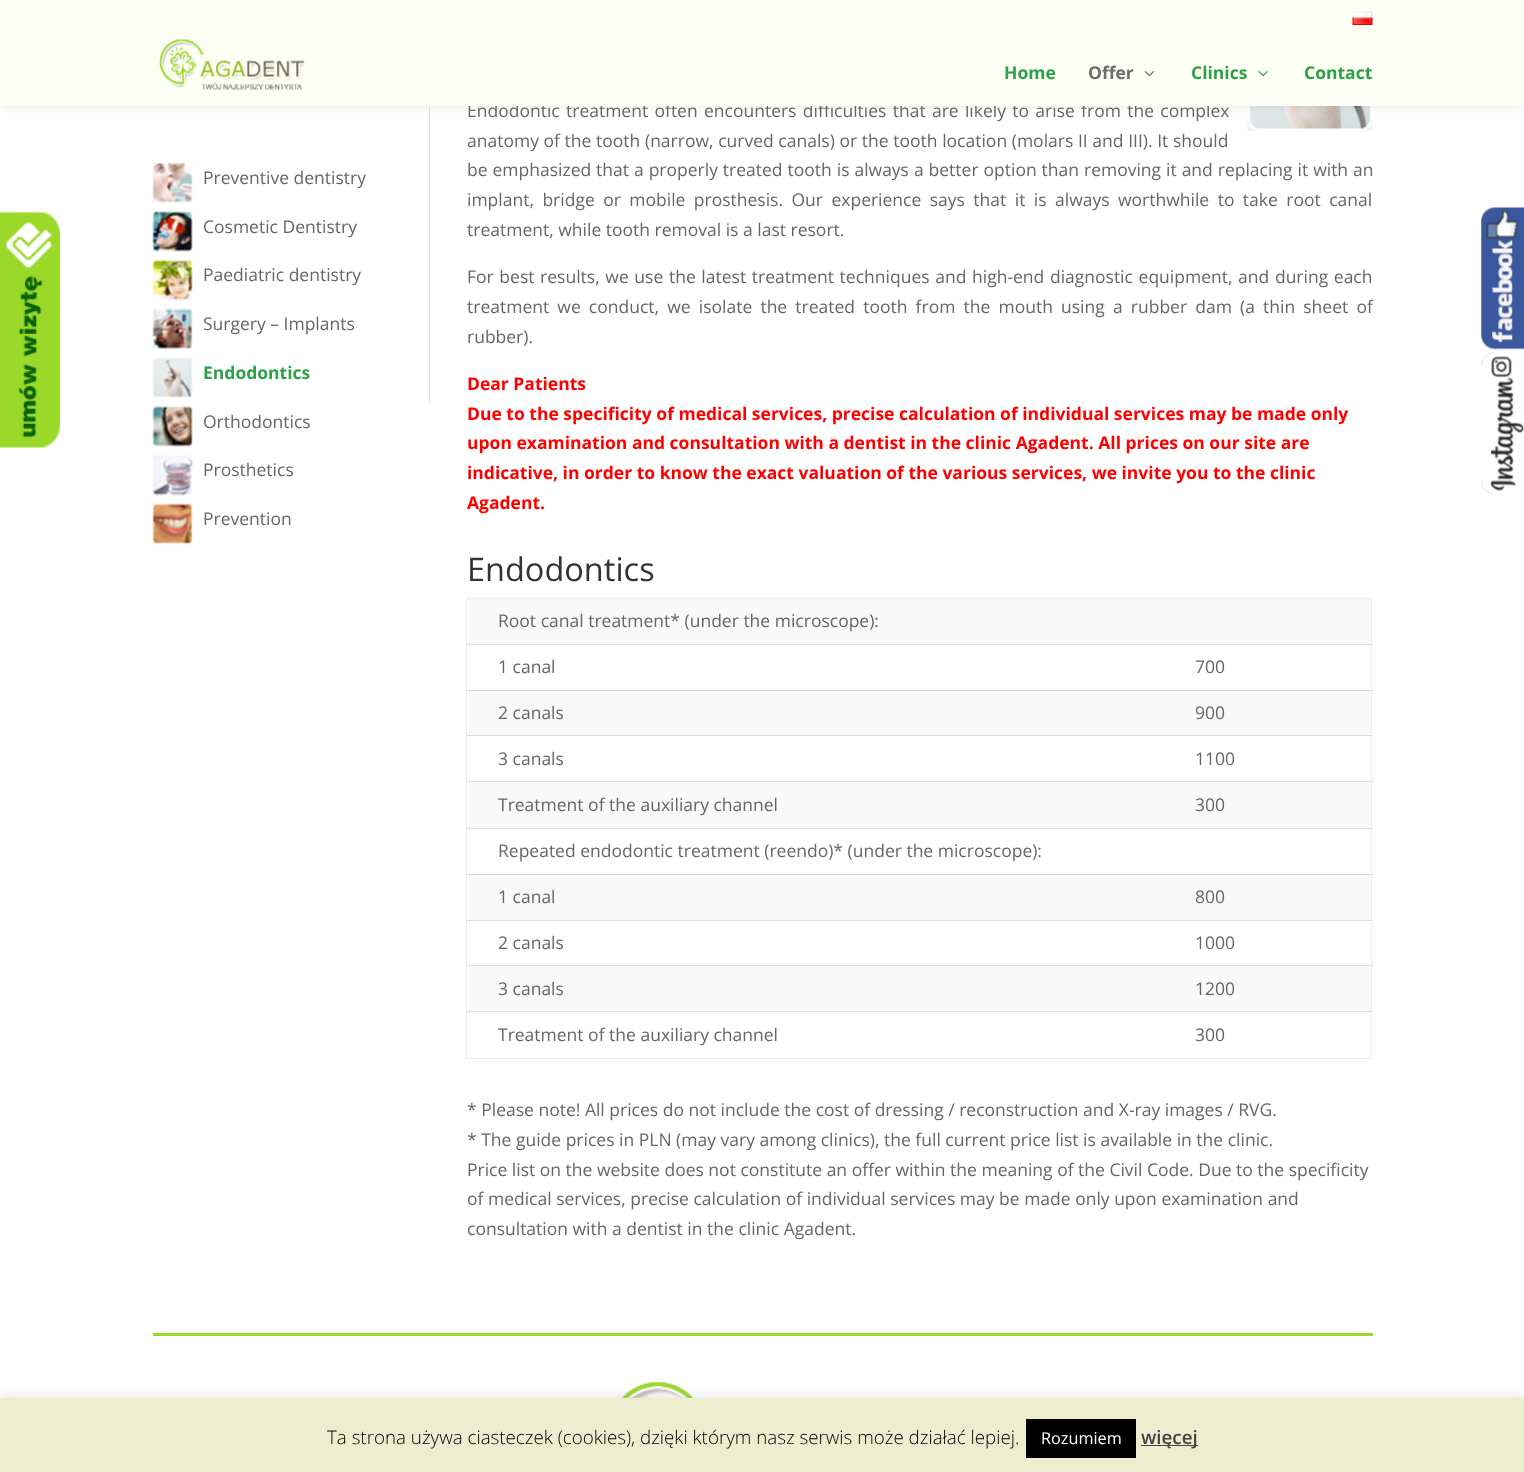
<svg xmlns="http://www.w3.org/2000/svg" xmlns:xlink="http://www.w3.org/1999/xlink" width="1524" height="1472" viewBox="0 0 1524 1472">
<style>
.cls-1{font:17.5px Open Sans;fill:#666666}
.cls-2{font:bold 17.5px Open Sans;fill:#2ca146}
.cls-3{font:bold 17.5px Open Sans;fill:#6d6d6d}
.cls-4{font:bold 17.5px Open Sans;fill:#ff0000}
.cls-5{font:32.5px Open Sans;fill:#333333}
.cls-6{font:300 18.75px Open Sans;fill:#000000}
.cls-7{font:16.25px Open Sans;fill:#ffffff}
.cls-8{font:600 18.75px Open Sans;fill:#444444}
</style>
<rect width="100%" height="100%" fill="#ffffff"/>
<rect fill="#e6e6e6" x="429" y="106" width="1" height="298"/>
<image xlink:href="image13.png" x="1247" y="106" width="126" height="25"/>
<rect fill="#000000" fill-opacity="0.1" filter="blur(4.5px)" x="0" y="39" width="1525" height="67"/>
<image xlink:href="image4.png" x="0" y="212" width="60" height="236"/>
<image xlink:href="image5.png" x="152" y="162" width="41" height="41"/>
<image xlink:href="image6.png" x="152" y="210" width="41" height="42"/>
<image xlink:href="image7.png" x="152" y="259" width="41" height="42"/>
<image xlink:href="image8.png" x="152" y="308" width="41" height="42"/>
<image xlink:href="image9.png" x="152" y="357" width="41" height="41"/>
<image xlink:href="image10.png" x="152" y="405" width="41" height="42"/>
<image xlink:href="image11.png" x="152" y="455" width="41" height="41"/>
<image xlink:href="image12.png" x="152" y="503" width="41" height="42"/>
<rect fill="#eeeeee" x="466" y="598" width="907" height="1"/>
<rect fill="#eeeeee" x="1371" y="598" width="1" height="461"/>
<rect fill="#eeeeee" x="466" y="1058" width="907" height="1"/>
<rect fill="#eeeeee" x="466" y="598" width="1" height="461"/>
<rect fill="#f9f9f9" x="468" y="599" width="903" height="45"/>
<rect fill="#dddddd" x="466" y="644" width="907" height="1"/>
<rect fill="#f9f9f9" x="468" y="691" width="903" height="44"/>
<rect fill="#dddddd" x="466" y="690" width="907" height="1"/>
<rect fill="#dddddd" x="466" y="735" width="907" height="1"/>
<rect fill="#f9f9f9" x="468" y="783" width="903" height="45"/>
<rect fill="#dddddd" x="466" y="781" width="907" height="1"/>
<rect fill="#dddddd" x="466" y="828" width="907" height="1"/>
<rect fill="#f9f9f9" x="468" y="875" width="903" height="45"/>
<rect fill="#dddddd" x="466" y="874" width="907" height="1"/>
<rect fill="#dddddd" x="466" y="920" width="907" height="1"/>
<rect fill="#f9f9f9" x="468" y="966" width="903" height="47"/>
<rect fill="#dddddd" x="466" y="965" width="907" height="1"/>
<rect fill="#dddddd" x="466" y="1011" width="907" height="1"/>
<rect fill="#9ad82a" x="153" y="1333" width="1220" height="3"/>
<image xlink:href="image14.png" x="617" y="1382" width="80" height="16"/>
<image xlink:href="image15.png" x="1481" y="207" width="43" height="143"/>
<image xlink:href="image16.png" x="1481" y="352" width="43" height="143"/>
<rect fill="#acabab" fill-opacity="0.3" filter="blur(6px)" x="0" y="1396" width="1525" height="75"/>
<rect fill="#ededd0" x="0" y="1398" width="1524" height="74"/>
<rect fill="#000000" x="1026" y="1419" width="110" height="39"/>
<rect fill="#444444" x="1141" y="1445" width="57" height="1"/>
<text class="cls-1" x="203" y="184">Preventive dentistry</text>
<text class="cls-1" x="203" y="233">Cosmetic Dentistry</text>
<text class="cls-1" x="203" y="281">Paediatric dentistry</text>
<text class="cls-1" x="203" y="330">Surgery – Implants</text>
<text class="cls-2" x="203" y="379">Endodontics</text>
<text class="cls-1" x="203" y="428">Orthodontics</text>
<text class="cls-1" x="203" y="476">Prosthetics</text>
<text class="cls-1" x="203" y="525">Prevention</text>
<text class="cls-1" x="467" y="117" word-spacing="1.75">Endodontic treatment often encounters difficulties that are likely to arise from the complex</text>
<rect fill="#fdfff4" x="0" y="0" width="1524" height="106"/>
<image xlink:href="image0.png" x="1352" y="11" width="21" height="14"/>
<text class="cls-2" x="1304" y="79">Contact</text>
<image xlink:href="image3.png" x="1258" y="71" width="10" height="6"/>
<text class="cls-2" x="1191" y="79">Clinics</text>
<image xlink:href="image2.png" x="1144" y="71" width="10" height="6"/>
<text class="cls-3" x="1088" y="79">Offer</text>
<text class="cls-2" x="1004" y="79">Home</text>
<image xlink:href="image1.png" x="159" y="39" width="146" height="51"/>
<text class="cls-1"><tspan x="467" y="147" word-spacing="0.1">anatomy of the tooth (narrow, curved canals) or the tooth location (molars II and III). It should</tspan><tspan x="467" y="176" word-spacing="0.4">be emphasized that a properly treated tooth is always a better option than removing it and replacing it with an</tspan><tspan x="467" y="206" word-spacing="3.9">implant, bridge or mobile prosthesis. Our experience says that it is always worthwhile to take root canal</tspan><tspan x="467" y="236">treatment, while tooth removal is a last resort.</tspan></text>
<text class="cls-1"><tspan x="467" y="283" word-spacing="1.1">For best results, we use the latest treatment techniques and high-end diagnostic equipment, and during each</tspan><tspan x="467" y="313" word-spacing="3.6">treatment we conduct, we isolate the treated tooth from the mouth using a rubber dam (a thin sheet of</tspan><tspan x="467" y="343">rubber).</tspan></text>
<text class="cls-4"><tspan x="467" y="390">Dear Patients</tspan><tspan x="467" y="420">Due to the specificity of medical services, precise calculation of individual services may be made only</tspan><tspan x="467" y="449">upon examination and consultation with a dentist in the clinic Agadent. All prices on our site are</tspan><tspan x="467" y="479">indicative, in order to know the exact valuation of the various services, we invite you to the clinic</tspan><tspan x="467" y="509">Agadent.</tspan></text>
<text class="cls-5" x="467" y="581">Endodontics</text>
<text class="cls-1" x="498" y="627">Root canal treatment* (under the microscope):</text>
<text class="cls-1" x="498" y="673">1 canal</text>
<text class="cls-1" x="1195" y="673">700</text>
<text class="cls-1" x="498" y="719">2 canals</text>
<text class="cls-1" x="1195" y="719">900</text>
<text class="cls-1" x="498" y="765">3 canals</text>
<text class="cls-1" x="1195" y="765">1100</text>
<text class="cls-1" x="498" y="811">Treatment of the auxiliary channel</text>
<text class="cls-1" x="1195" y="811">300</text>
<text class="cls-1" x="498" y="857">Repeated endodontic treatment (reendo)* (under the microscope):</text>
<text class="cls-1" x="498" y="903">1 canal</text>
<text class="cls-1" x="1195" y="903">800</text>
<text class="cls-1" x="498" y="949">2 canals</text>
<text class="cls-1" x="1195" y="949">1000</text>
<text class="cls-1" x="498" y="995">3 canals</text>
<text class="cls-1" x="1195" y="995">1200</text>
<text class="cls-1" x="498" y="1041">Treatment of the auxiliary channel</text>
<text class="cls-1" x="1195" y="1041">300</text>
<text class="cls-1"><tspan x="467" y="1116">* Please note! All prices do not include the cost of dressing / reconstruction and X-ray images / RVG.</tspan><tspan x="467" y="1146">* The guide prices in PLN (may vary among clinics), the full current price list is available in the clinic.</tspan><tspan x="467" y="1176">Price list on the website does not constitute an offer within the meaning of the Civil Code. Due to the specificity</tspan><tspan x="467" y="1205">of medical services, precise calculation of individual services may be made only upon examination and</tspan><tspan x="467" y="1235">consultation with a dentist in the clinic Agadent.</tspan></text>
<text class="cls-6" x="327" y="1444">Ta strona używa ciasteczek (cookies), dzięki którym nasz serwis może działać lepiej.</text>
<text class="cls-7" x="1041" y="1444">Rozumiem</text>
<text class="cls-8" x="1141" y="1444">więcej</text>
</svg>
